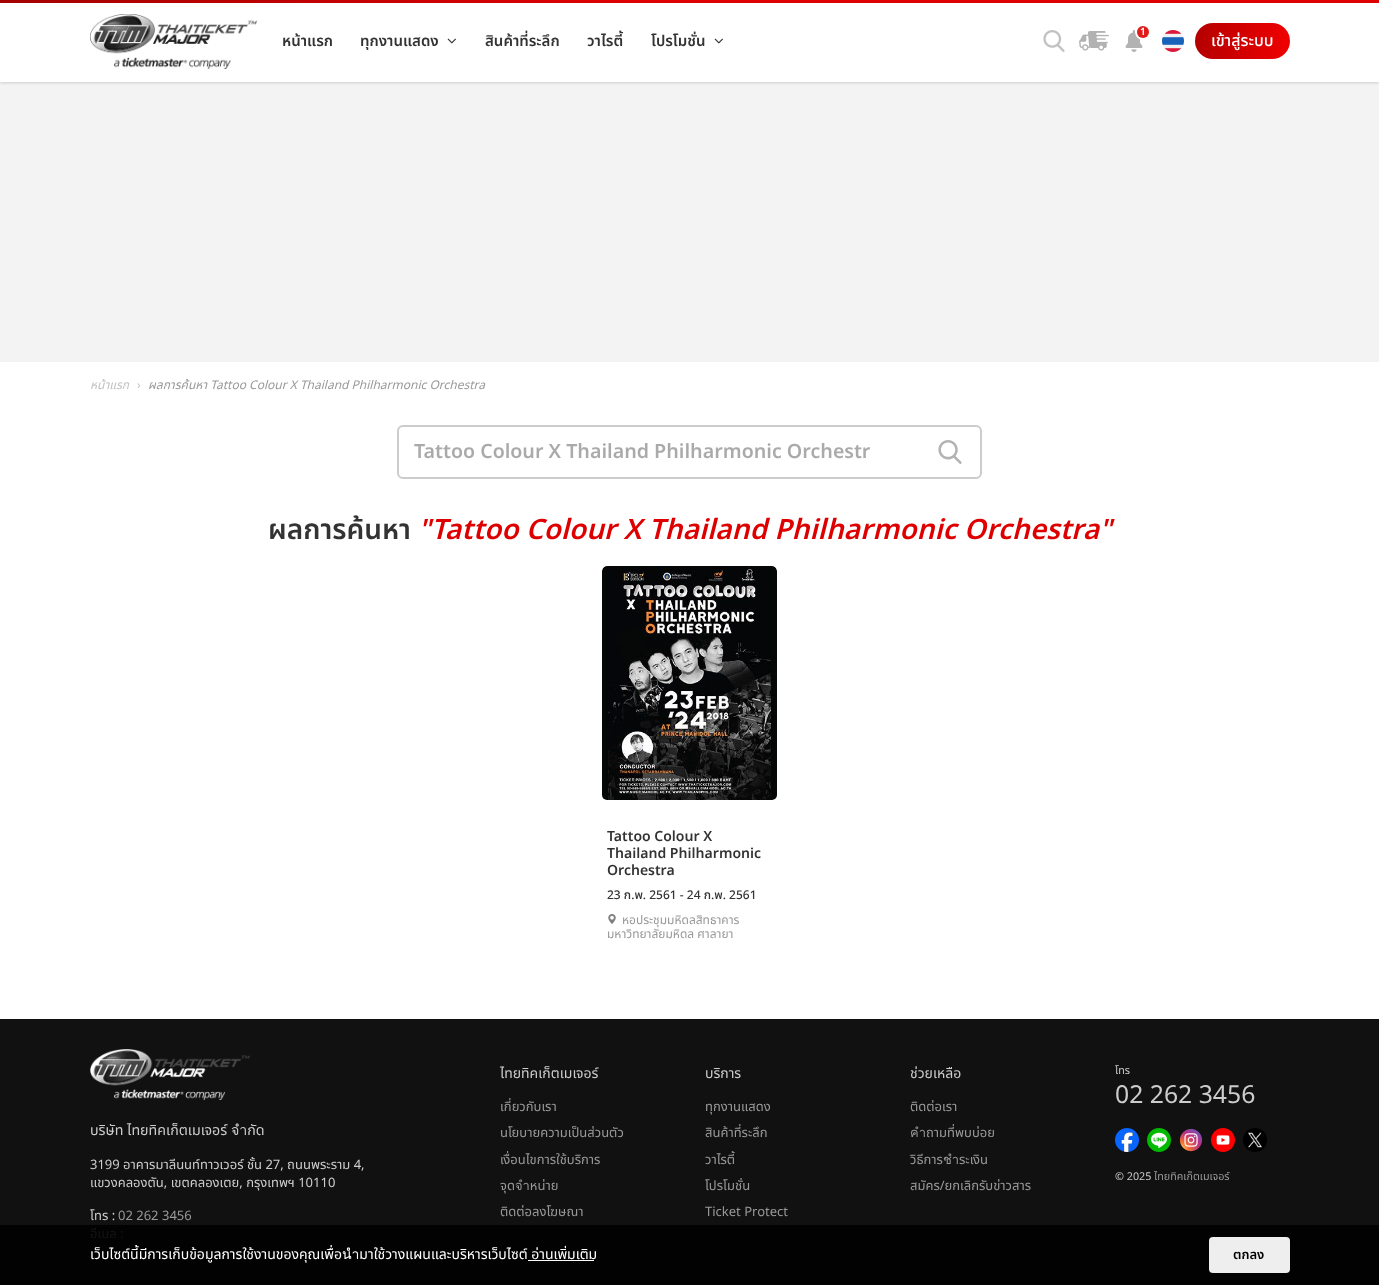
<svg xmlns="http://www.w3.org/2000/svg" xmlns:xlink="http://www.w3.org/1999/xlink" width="1379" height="1285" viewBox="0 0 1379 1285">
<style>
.cls-1{font:600 15px Noto Sans Thai;fill:#333333}
.cls-2{font:600 10px Noto Sans Thai;fill:#ffffff}
.cls-3{font:500 16px Noto Sans Thai;fill:#ffffff}
.cls-4{font:italic 12px Noto Sans Thai;fill:#c2c2c2}
.cls-5{font:12px Noto Sans Thai;fill:#c2c2c2}
.cls-6{font:italic 12px Noto Sans Thai;fill:#999999}
.cls-7{font:600 19.6px Noto Sans Thai;fill:#aaaaaa}
.cls-8{font:600 28px Noto Sans Thai;fill:#333333}
.cls-9{font:italic 600 28px Noto Sans Thai;fill:#de0000}
.cls-10{font:600 14px Noto Sans Thai;fill:#333333}
.cls-11{font:500 12px Noto Sans Thai;fill:#333333}
.cls-12{font:12px Noto Sans Thai;fill:#999999}
.cls-13{font:14.25px Noto Sans Thai;fill:#cccccc}
.cls-14{font:13px Noto Sans Thai;fill:#cccccc}
.cls-15{font:13px Noto Sans Thai;fill:#999999}
.cls-16{font:13px Noto Sans Thai;fill:#141414}
.cls-17{font:14px Noto Sans Thai;fill:#cccccc}
.cls-18{font:10.75px Noto Sans Thai;fill:#cccccc}
.cls-19{font:24.75px Noto Sans Thai;fill:#cccccc}
.cls-20{font:10.75px Noto Sans Thai;fill:#999999}
.cls-21{font:14px Noto Sans Thai;fill:#ffffff}
.cls-22{font:600 13px Noto Sans Thai;fill:#000000}
</style>
<defs>
<clipPath id="clip1"><rect x="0" y="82" width="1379" height="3"/></clipPath>
<linearGradient id="g1" gradientUnits="userSpaceOnUse" x1="1379" y1="1.5" x2="0" y2="1.5"><stop offset="0.55" stop-color="#de0000"/><stop offset="1" stop-color="#a40000"/></linearGradient>
<linearGradient id="g2" gradientUnits="userSpaceOnUse" x1="1195" y1="41" x2="1290" y2="41"><stop offset="0" stop-color="#b40000"/><stop offset="1" stop-color="#f00000"/></linearGradient>
</defs>
<rect width="100%" height="100%" fill="#ffffff"/>
<rect fill="#f3f3f3" x="0" y="82" width="1379" height="280"/>
<g clip-path="url(#clip1)">
<rect fill="#000000" fill-opacity="0.15" filter="blur(1.5px)" x="0" y="1" width="1379" height="82"/>
</g>
<rect fill="url(#g1)" x="0" y="0" width="1379" height="3"/>
<image xlink:href="image0.png" x="90" y="14" width="167" height="55"/>
<image xlink:href="image1.png" x="447" y="38" width="9" height="6"/>
<image xlink:href="image1.png" x="714" y="38" width="9" height="6"/>
<image xlink:href="image2.png" x="1043" y="30" width="22" height="22"/>
<image xlink:href="image3.png" x="1079" y="31" width="30" height="20"/>
<image xlink:href="image4.png" x="1125" y="30" width="18" height="22"/>
<circle fill="none" stroke="#ffffff" stroke-width="2" cx="1143" cy="32" r="7"/>
<circle fill="#e11a1a" cx="1143" cy="32" r="6"/>
<image xlink:href="image5.png" x="1162" y="30" width="22" height="22"/>
<rect fill="url(#g2)" x="1195" y="23" width="95" height="36" rx="18"/>
<rect fill="none" stroke="#cccccc" stroke-width="2" x="398" y="426" width="583" height="52" rx="5"/>
<image xlink:href="image6.png" x="938" y="440" width="24" height="24"/>
<image xlink:href="image7.png" x="602" y="566" width="175" height="234"/>
<image xlink:href="image8.png" x="608" y="914" width="8" height="10"/>
<rect fill="#111111" x="0" y="1019" width="1379" height="206"/>
<rect fill="#020202" x="0" y="1225" width="1379" height="60"/>
<image xlink:href="image9.png" x="90" y="1049" width="160" height="51"/>
<image xlink:href="image10.png" x="1115" y="1128" width="24" height="24"/>
<image xlink:href="image11.png" x="1147" y="1128" width="24" height="24"/>
<image xlink:href="image12.png" x="1179" y="1128" width="24" height="24"/>
<image xlink:href="image13.png" x="1211" y="1128" width="24" height="24"/>
<image xlink:href="image14.png" x="1243" y="1128" width="24" height="24"/>
<rect fill="#ffffff" x="528" y="1260" width="66" height="1"/>
<rect fill="#eeeeee" x="1209" y="1237" width="81" height="36" rx="4"/>
<text class="cls-1" x="282" y="46">หน้าแรก</text>
<text class="cls-1" x="360" y="46">ทุกงานแสดง</text>
<text class="cls-1" x="485" y="46">สินค้าที่ระลึก</text>
<text class="cls-1" x="587" y="46">วาไรตี้</text>
<text class="cls-1" x="651" y="46">โปรโมชั่น</text>
<text class="cls-2" x="1140" y="35">1</text>
<text class="cls-3" x="1211" y="46">เข้าสู่ระบบ</text>
<text class="cls-4" x="90" y="389">หน้าแรก</text>
<text class="cls-5" x="137" y="389">›</text>
<text class="cls-6" x="148" y="389">ผลการค้นหา Tattoo Colour X Thailand Philharmonic Orchestra</text>
<text class="cls-7" x="414" y="458">Tattoo Colour X Thailand Philharmonic Orchestr</text>
<text class="cls-8" x="268" y="539">ผลการค้นหา</text>
<text class="cls-9" x="418" y="539">"Tattoo Colour X Thailand Philharmonic Orchestra"</text>
<text class="cls-10"><tspan x="607" y="841">Tattoo Colour X</tspan><tspan x="607" y="858">Thailand Philharmonic</tspan><tspan x="607" y="875">Orchestra</tspan></text>
<text class="cls-11" x="607" y="899">23 ก.พ. 2561 - 24 ก.พ. 2561</text>
<text class="cls-12" x="622" y="924">หอประชุมมหิดลสิทธาคาร</text>
<text class="cls-12" x="607" y="938">มหาวิทยาลัยมหิดล ศาลายา</text>
<text class="cls-13" x="90" y="1135">บริษัท ไทยทิคเก็ตเมเจอร์ จำกัด</text>
<text class="cls-14"><tspan x="90" y="1169">3199 อาคารมาลีนนท์ทาวเวอร์ ชั้น 27, ถนนพระราม 4,</tspan><tspan x="90" y="1187">แขวงคลองตัน, เขตคลองเตย, กรุงเทพฯ 10110</tspan></text>
<text class="cls-14" x="90" y="1220">โทร :</text>
<text class="cls-15" x="118" y="1220">02 262 3456</text>
<text class="cls-16" x="90" y="1238">อีเมล :</text>
<text class="cls-17" x="500" y="1078">ไทยทิคเก็ตเมเจอร์</text>
<text class="cls-15" x="500" y="1111">เกี่ยวกับเรา</text>
<text class="cls-15" x="500" y="1137">นโยบายความเป็นส่วนตัว</text>
<text class="cls-15" x="500" y="1164">เงื่อนไขการใช้บริการ</text>
<text class="cls-15" x="500" y="1190">จุดจำหน่าย</text>
<text class="cls-15" x="500" y="1216">ติดต่อลงโฆษณา</text>
<text class="cls-17" x="705" y="1078">บริการ</text>
<text class="cls-15" x="705" y="1111">ทุกงานแสดง</text>
<text class="cls-15" x="705" y="1137">สินค้าที่ระลึก</text>
<text class="cls-15" x="705" y="1164">วาไรตี้</text>
<text class="cls-15" x="705" y="1190">โปรโมชั่น</text>
<text class="cls-15" x="705" y="1216">Ticket Protect</text>
<text class="cls-17" x="910" y="1078">ช่วยเหลือ</text>
<text class="cls-15" x="910" y="1111">ติดต่อเรา</text>
<text class="cls-15" x="910" y="1137">คำถามที่พบบ่อย</text>
<text class="cls-15" x="910" y="1164">วิธีการชำระเงิน</text>
<text class="cls-15" x="910" y="1190">สมัคร/ยกเลิกรับข่าวสาร</text>
<text class="cls-18" x="1115" y="1074">โทร</text>
<text class="cls-19" x="1115" y="1103">02 262 3456</text>
<text class="cls-18" x="1115" y="1180">© 2025</text>
<text class="cls-20" x="1154" y="1180">ไทยทิคเก็ตเมเจอร์</text>
<text class="cls-21" x="90" y="1259">เว็บไซต์นี้มีการเก็บข้อมูลการใช้งานของคุณเพื่อนำมาใช้วางแผนและบริหารเว็บไซต์ อ่านเพิ่มเติม</text>
<text class="cls-22" x="1233" y="1259">ตกลง</text>
</svg>
